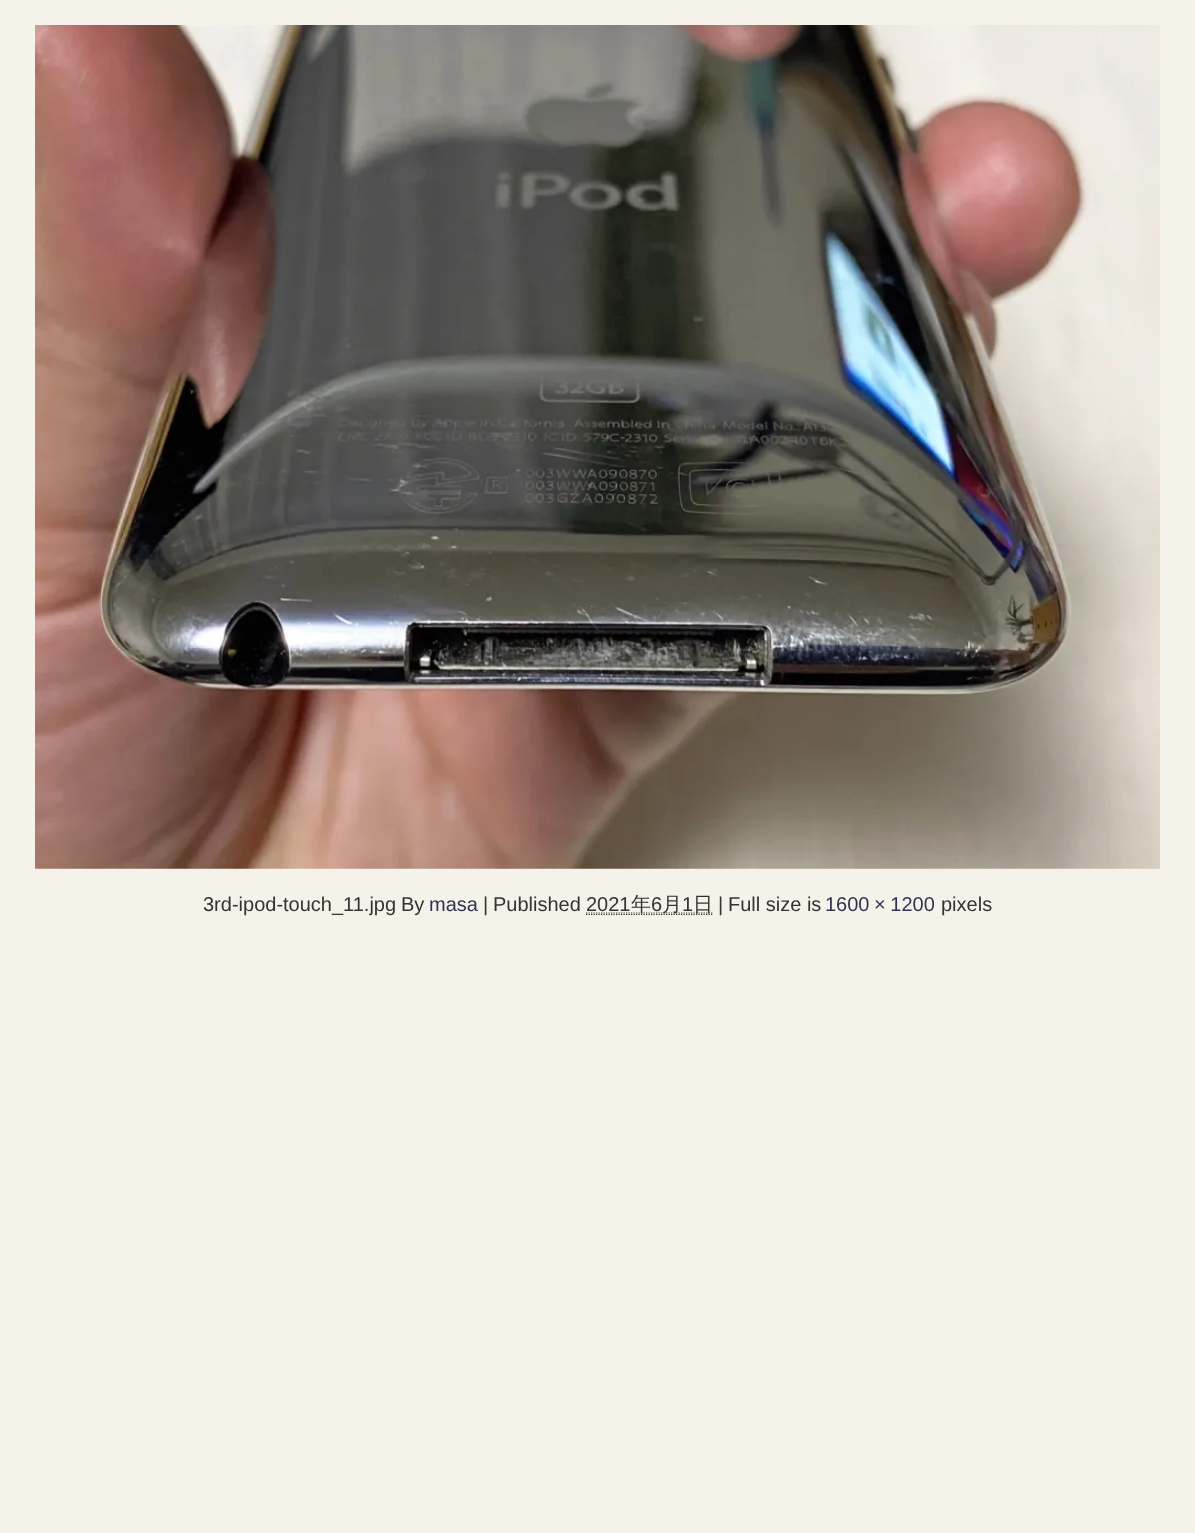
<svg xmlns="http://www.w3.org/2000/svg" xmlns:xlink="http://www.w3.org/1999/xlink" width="1195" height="1533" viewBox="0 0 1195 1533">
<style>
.cls-1{font:20px Liberation Sans;fill:#333333}
.cls-2{font:20px Liberation Sans;fill:#333355}
.cls-3{font:500 20px WenQuanYi Zen Hei;fill:#333333}
</style>
<rect width="100%" height="100%" fill="#f4f2e9"/>
<image xlink:href="image0.png" x="35" y="25" width="1125" height="844"/>
<path fill="none" stroke="#333333" stroke-width="1.2" stroke-dasharray="1.25 1.25" d="M586 914.5H712.5"/>
<path fill="none" stroke="#333333" stroke-width="1.2" stroke-dasharray="1.25 1.25" d="M586 913H713"/>
<text class="cls-1" x="203" y="911">3rd-ipod-touch_11.jpg</text>
<text class="cls-1" x="401" y="911">By</text>
<text class="cls-2" x="429" y="911">masa</text>
<text class="cls-1" x="483" y="911">|</text>
<text class="cls-1" x="493" y="911">Published</text>
<text class="cls-1" x="586" y="911">2021</text>
<text class="cls-3" x="631" y="911">年</text>
<text class="cls-1" x="651" y="911">6</text>
<text class="cls-3" x="662" y="911">月</text>
<text class="cls-1" x="682" y="911">1</text>
<text class="cls-3" x="693" y="911">日</text>
<text class="cls-1" x="718" y="911">|</text>
<text class="cls-1" x="728" y="911">Full size is</text>
<text class="cls-2" x="825" y="911" word-spacing="-1">1600 × 1200</text>
<text class="cls-1" x="941" y="911">pixels</text>
</svg>
